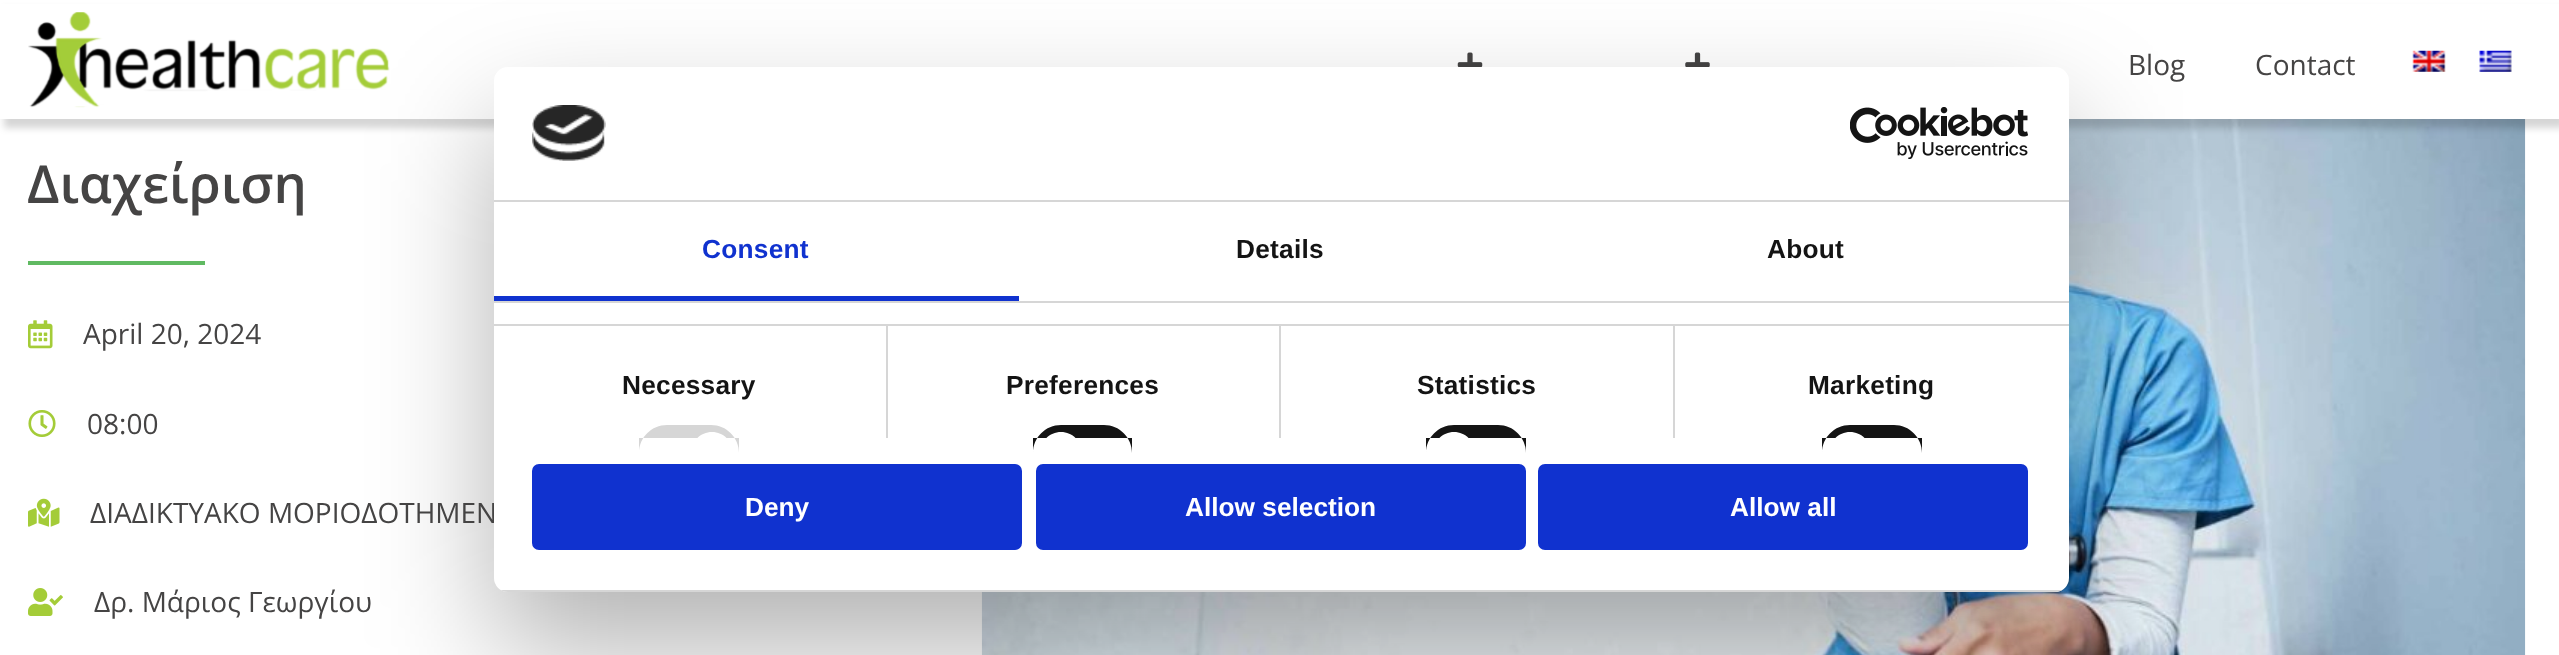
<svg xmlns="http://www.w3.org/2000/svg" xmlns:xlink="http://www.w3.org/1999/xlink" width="2559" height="655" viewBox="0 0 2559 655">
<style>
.cls-1{font:28px Open Sans;fill:#454444}
.cls-2{font:600 52.5px Open Sans;fill:#454444}
.cls-3{font:bold 26.25px Liberation Sans;letter-spacing:0.25px;fill:#1032cf}
.cls-4{font:bold 26.25px Liberation Sans;letter-spacing:0.25px;fill:#141414}
.cls-5{font:bold 26.25px Liberation Sans;fill:#ffffff}
</style>
<defs>
<clipPath id="clip1"><rect x="494" y="67" width="1575" height="525" rx="14"/></clipPath>
</defs>
<rect width="100%" height="100%" fill="#ffffff"/>
<image xlink:href="image9.png" x="981" y="119" width="1545" height="536"/>
<rect fill="#000000" fill-opacity="0.16" filter="blur(3.5px)" x="4" y="9" width="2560" height="119"/>
<rect fill="#ffffff" x="0" y="4" width="2559" height="115"/>
<image xlink:href="image0.png" x="28" y="12" width="362" height="96"/>
<image xlink:href="image1.png" x="1457" y="52" width="26" height="15"/>
<image xlink:href="image2.png" x="1685" y="52" width="25" height="15"/>
<image xlink:href="image3.png" x="2412" y="50" width="34" height="22"/>
<image xlink:href="image4.png" x="2479" y="50" width="33" height="22"/>
<rect fill="#60ba62" x="28" y="261" width="177" height="4"/>
<image xlink:href="image5.png" x="28" y="320" width="25" height="29"/>
<image xlink:href="image6.png" x="28" y="410" width="28" height="27"/>
<image xlink:href="image7.png" x="28" y="498" width="32" height="29"/>
<image xlink:href="image8.png" x="28" y="588" width="35" height="28"/>
<rect fill="#000000" fill-opacity="0.3" filter="blur(59.5px)" x="494" y="123" width="1575" height="525" rx="14"/>
<text class="cls-1" x="2128" y="75">Blog</text>
<text class="cls-1" x="2255" y="75">Contact</text>
<text class="cls-2" x="27" y="203">Διαχείριση</text>
<text class="cls-1" x="83" y="344">April 20, 2024</text>
<text class="cls-1" x="87" y="434">08:00</text>
<text class="cls-1" x="90" y="523">ΔΙΑΔΙΚΤΥΑΚΟ ΜΟΡΙΟΔΟΤΗΜΕΝ</text>
<text class="cls-1" x="94" y="612">Δρ. Μάριος Γεωργίου</text>
<rect fill="#ffffff" x="494" y="67" width="1575" height="525" rx="14"/>
<rect fill="#d6d6d6" x="494" y="200" width="1575" height="2"/>
<image xlink:href="image10.png" x="532" y="105" width="74" height="56"/>
<image xlink:href="image11.png" x="1850" y="107" width="178" height="52"/>
<rect fill="#d6d6d6" x="494" y="301" width="1575" height="2"/>
<rect fill="#1032cf" x="494" y="296" width="525" height="5"/>
<text class="cls-3" x="702" y="258">Consent</text>
<text class="cls-4" x="1236" y="258">Details</text>
<text class="cls-4" x="1767" y="258">About</text>
<rect fill="#d6d6d6" x="494" y="324" width="1575" height="2"/>
<rect fill="#d6d6d6" x="886" y="326" width="2" height="112"/>
<text class="cls-4" x="622" y="394">Necessary</text>
<path fill="#d6d6d6" d="M667 425H711C726.5 425 739 437.5 739 453V438H639V453C639 437.5 651.5 425 667 425Z"/>
<path fill="#ffffff" d="M712 432C723.5 432 733 441.5 733 453V438H691V453C691 441.5 700.5 432 712 432Z"/>
<rect fill="#d6d6d6" x="1279" y="326" width="2" height="112"/>
<text class="cls-4" x="1006" y="394">Preferences</text>
<path fill="#141414" d="M1061 425H1104C1119.5 425 1132 437.5 1132 453V438H1033V453C1033 437.5 1045.5 425 1061 425Z"/>
<path fill="#ffffff" d="M1061 432C1072.5 432 1082 441.5 1082 453V438H1040V453C1040 441.5 1049.5 432 1061 432Z"/>
<rect fill="#d6d6d6" x="1673" y="326" width="2" height="112"/>
<text class="cls-4" x="1417" y="394">Statistics</text>
<path fill="#141414" d="M1454 425H1498C1513.5 425 1526 437.5 1526 453V438H1426V453C1426 437.5 1438.5 425 1454 425Z"/>
<path fill="#ffffff" d="M1454 432C1465.5 432 1475 441.5 1475 453V438H1433V453C1433 441.5 1442.5 432 1454 432Z"/>
<text class="cls-4" x="1808" y="394">Marketing</text>
<path fill="#141414" d="M1850 425H1894C1909.5 425 1922 437.5 1922 453V438H1822V453C1822 437.5 1834.5 425 1850 425Z"/>
<path fill="#ffffff" d="M1850 432C1861.5 432 1871 441.5 1871 453V438H1829V453C1829 441.5 1838.5 432 1850 432Z"/>
<g clip-path="url(#clip1)">
<rect fill="#d6d6d6" x="494" y="590" width="1575" height="2"/>
</g>
<rect fill="#1032cf" stroke="#1032cf" stroke-width="4" x="534" y="466" width="486" height="82" rx="5"/>
<text class="cls-5" x="745" y="516">Deny</text>
<rect fill="#1032cf" stroke="#1032cf" stroke-width="4" x="1038" y="466" width="486" height="82" rx="5"/>
<text class="cls-5" x="1185" y="516">Allow selection</text>
<rect fill="#1032cf" stroke="#1032cf" stroke-width="4" x="1540" y="466" width="486" height="82" rx="5"/>
<text class="cls-5" x="1730" y="516">Allow all</text>
</svg>
